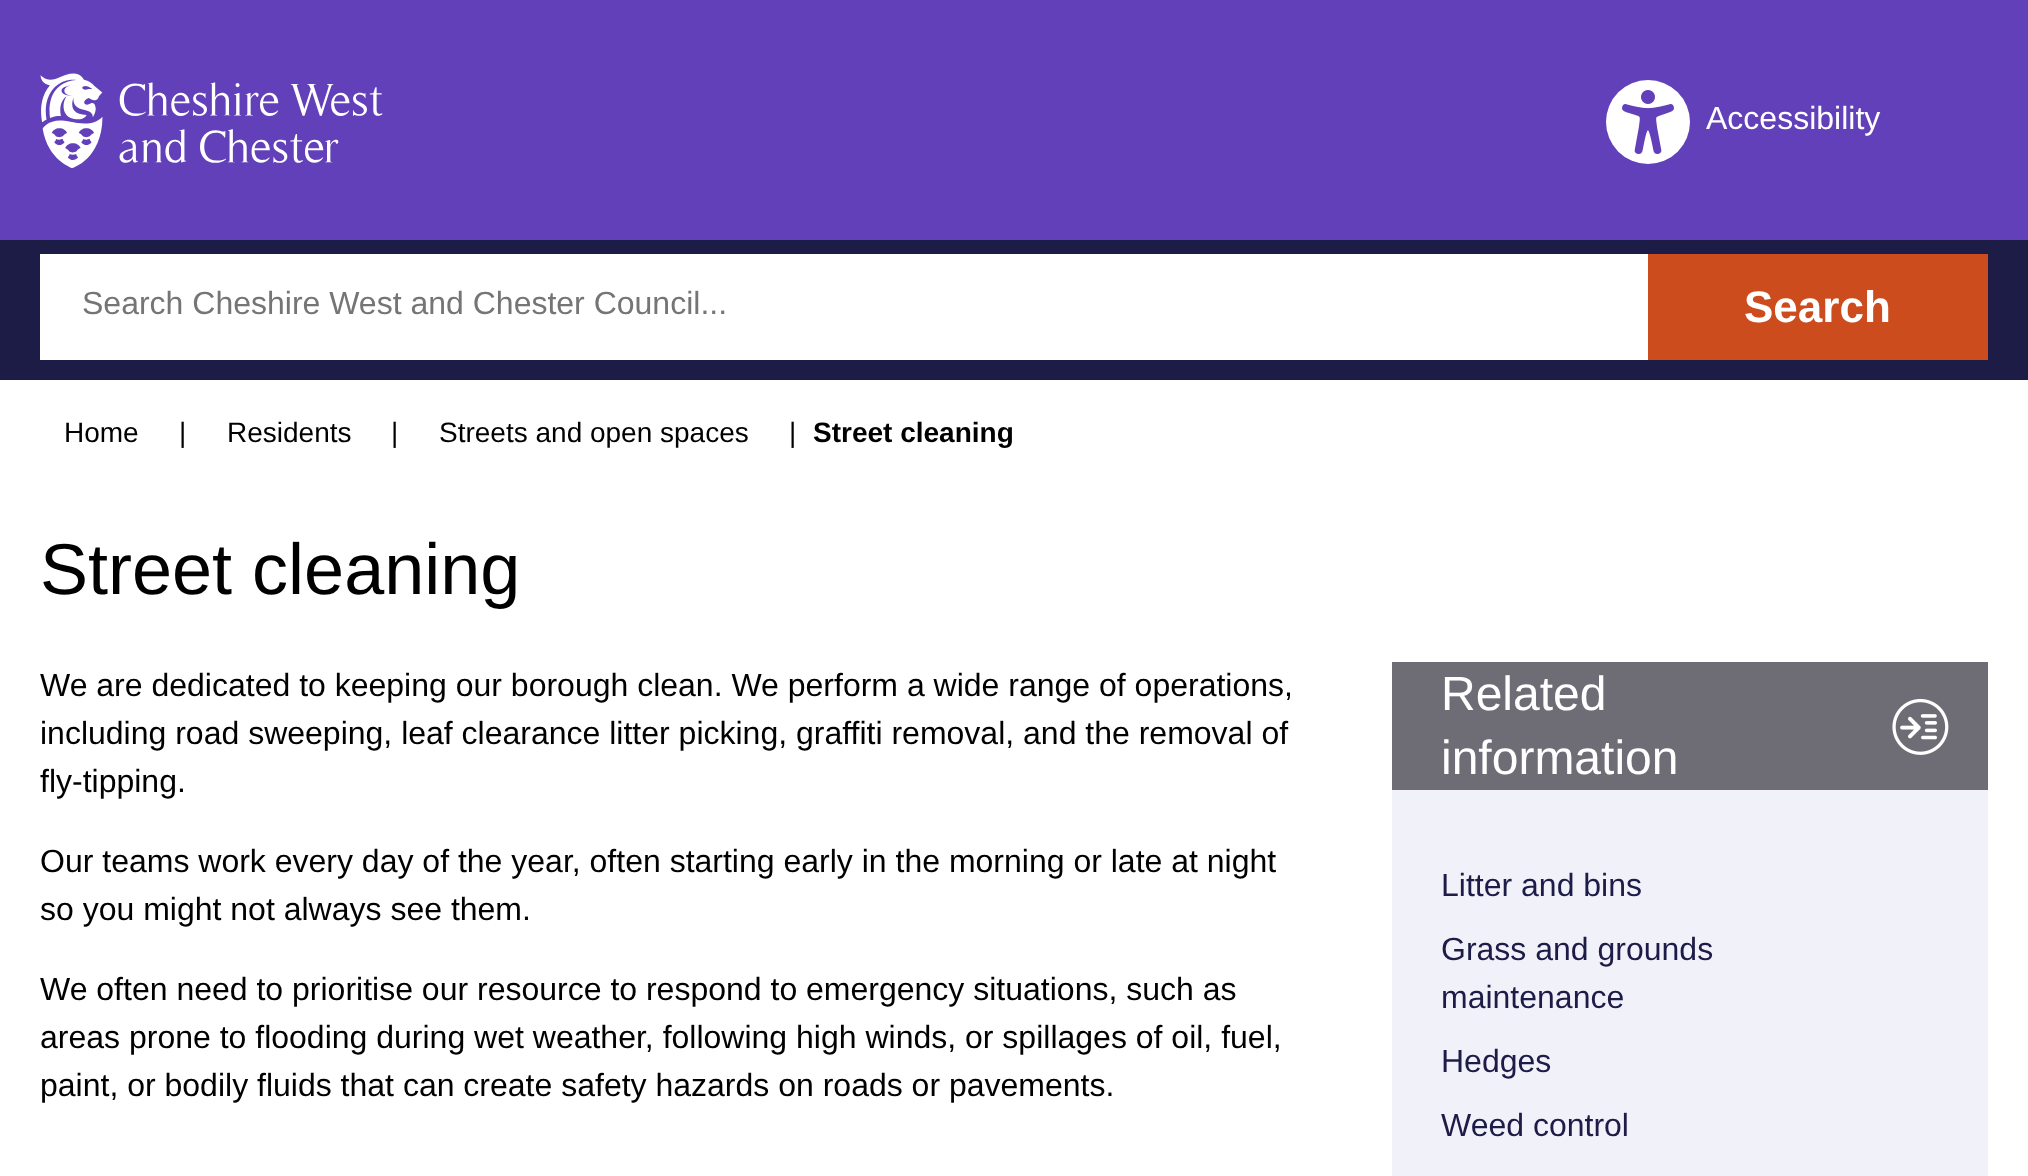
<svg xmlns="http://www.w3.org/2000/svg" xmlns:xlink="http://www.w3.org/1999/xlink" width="2028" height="1176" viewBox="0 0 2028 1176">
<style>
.cls-1{font:32px Liberation Sans;fill:#ffffff}
.cls-2{font:32px Liberation Sans;fill:#757575}
.cls-3{font:bold 44px Liberation Sans;fill:#ffffff}
.cls-4{font:28px Liberation Sans;fill:#000000}
.cls-5{font:bold 28px Liberation Sans;fill:#000000}
.cls-6{font:72px Liberation Sans;fill:#000000}
.cls-7{font:32px Liberation Sans;fill:#000000}
.cls-8{font:48px Liberation Sans;fill:#ffffff}
.cls-9{font:32px Liberation Sans;fill:#1c1c47}
</style>
<rect width="100%" height="100%" fill="#ffffff"/>
<rect fill="#6240ba" x="0" y="0" width="2028" height="240"/>
<image xlink:href="image0.png" x="40" y="73" width="343" height="95"/>
<circle fill="#ffffff" cx="1648" cy="122" r="42"/>
<image xlink:href="image1.png" x="1622" y="90" width="52" height="64"/>
<rect fill="#1c1c47" x="0" y="240" width="2028" height="140"/>
<rect fill="#ffffff" x="40" y="254" width="1608" height="106"/>
<rect fill="#cc4c1e" x="1648" y="254" width="340" height="106"/>
<rect fill="#6e6c75" x="1392" y="662" width="596" height="128"/>
<image xlink:href="image2.png" x="1892" y="698" width="57" height="57"/>
<rect fill="#f1f1fa" x="1392" y="790" width="596" height="386"/>
<text class="cls-1" x="1706" y="129">Accessibility</text>
<text class="cls-2" x="82" y="314">Search Cheshire West and Chester Council...</text>
<text class="cls-3" x="1744" y="322">Search</text>
<text class="cls-4" x="64" y="442">Home</text>
<text class="cls-4" x="179" y="442">|</text>
<text class="cls-4" x="227" y="442">Residents</text>
<text class="cls-4" x="391" y="442">|</text>
<text class="cls-4" x="439" y="442">Streets and open spaces</text>
<text class="cls-4" x="789" y="442">|</text>
<text class="cls-5" x="813" y="442">Street cleaning</text>
<text class="cls-6" x="40" y="594">Street cleaning</text>
<text class="cls-7"><tspan x="40" y="696">We are dedicated to keeping our borough clean. We perform a wide range of operations,</tspan><tspan x="40" y="744">including road sweeping, leaf clearance litter picking, graffiti removal, and the removal of</tspan><tspan x="40" y="792">fly-tipping.</tspan></text>
<text class="cls-7"><tspan x="40" y="872">Our teams work every day of the year, often starting early in the morning or late at night</tspan><tspan x="40" y="920">so you might not always see them.</tspan></text>
<text class="cls-7"><tspan x="40" y="1000">We often need to prioritise our resource to respond to emergency situations, such as</tspan><tspan x="40" y="1048">areas prone to flooding during wet weather, following high winds, or spillages of oil, fuel,</tspan><tspan x="40" y="1096">paint, or bodily fluids that can create safety hazards on roads or pavements.</tspan></text>
<text class="cls-8"><tspan x="1441" y="710">Related</tspan><tspan x="1441" y="774">information</tspan></text>
<text class="cls-9" x="1441" y="896">Litter and bins</text>
<text class="cls-9"><tspan x="1441" y="960">Grass and grounds</tspan><tspan x="1441" y="1008">maintenance</tspan></text>
<text class="cls-9" x="1441" y="1072">Hedges</text>
<text class="cls-9" x="1441" y="1136">Weed control</text>
</svg>
